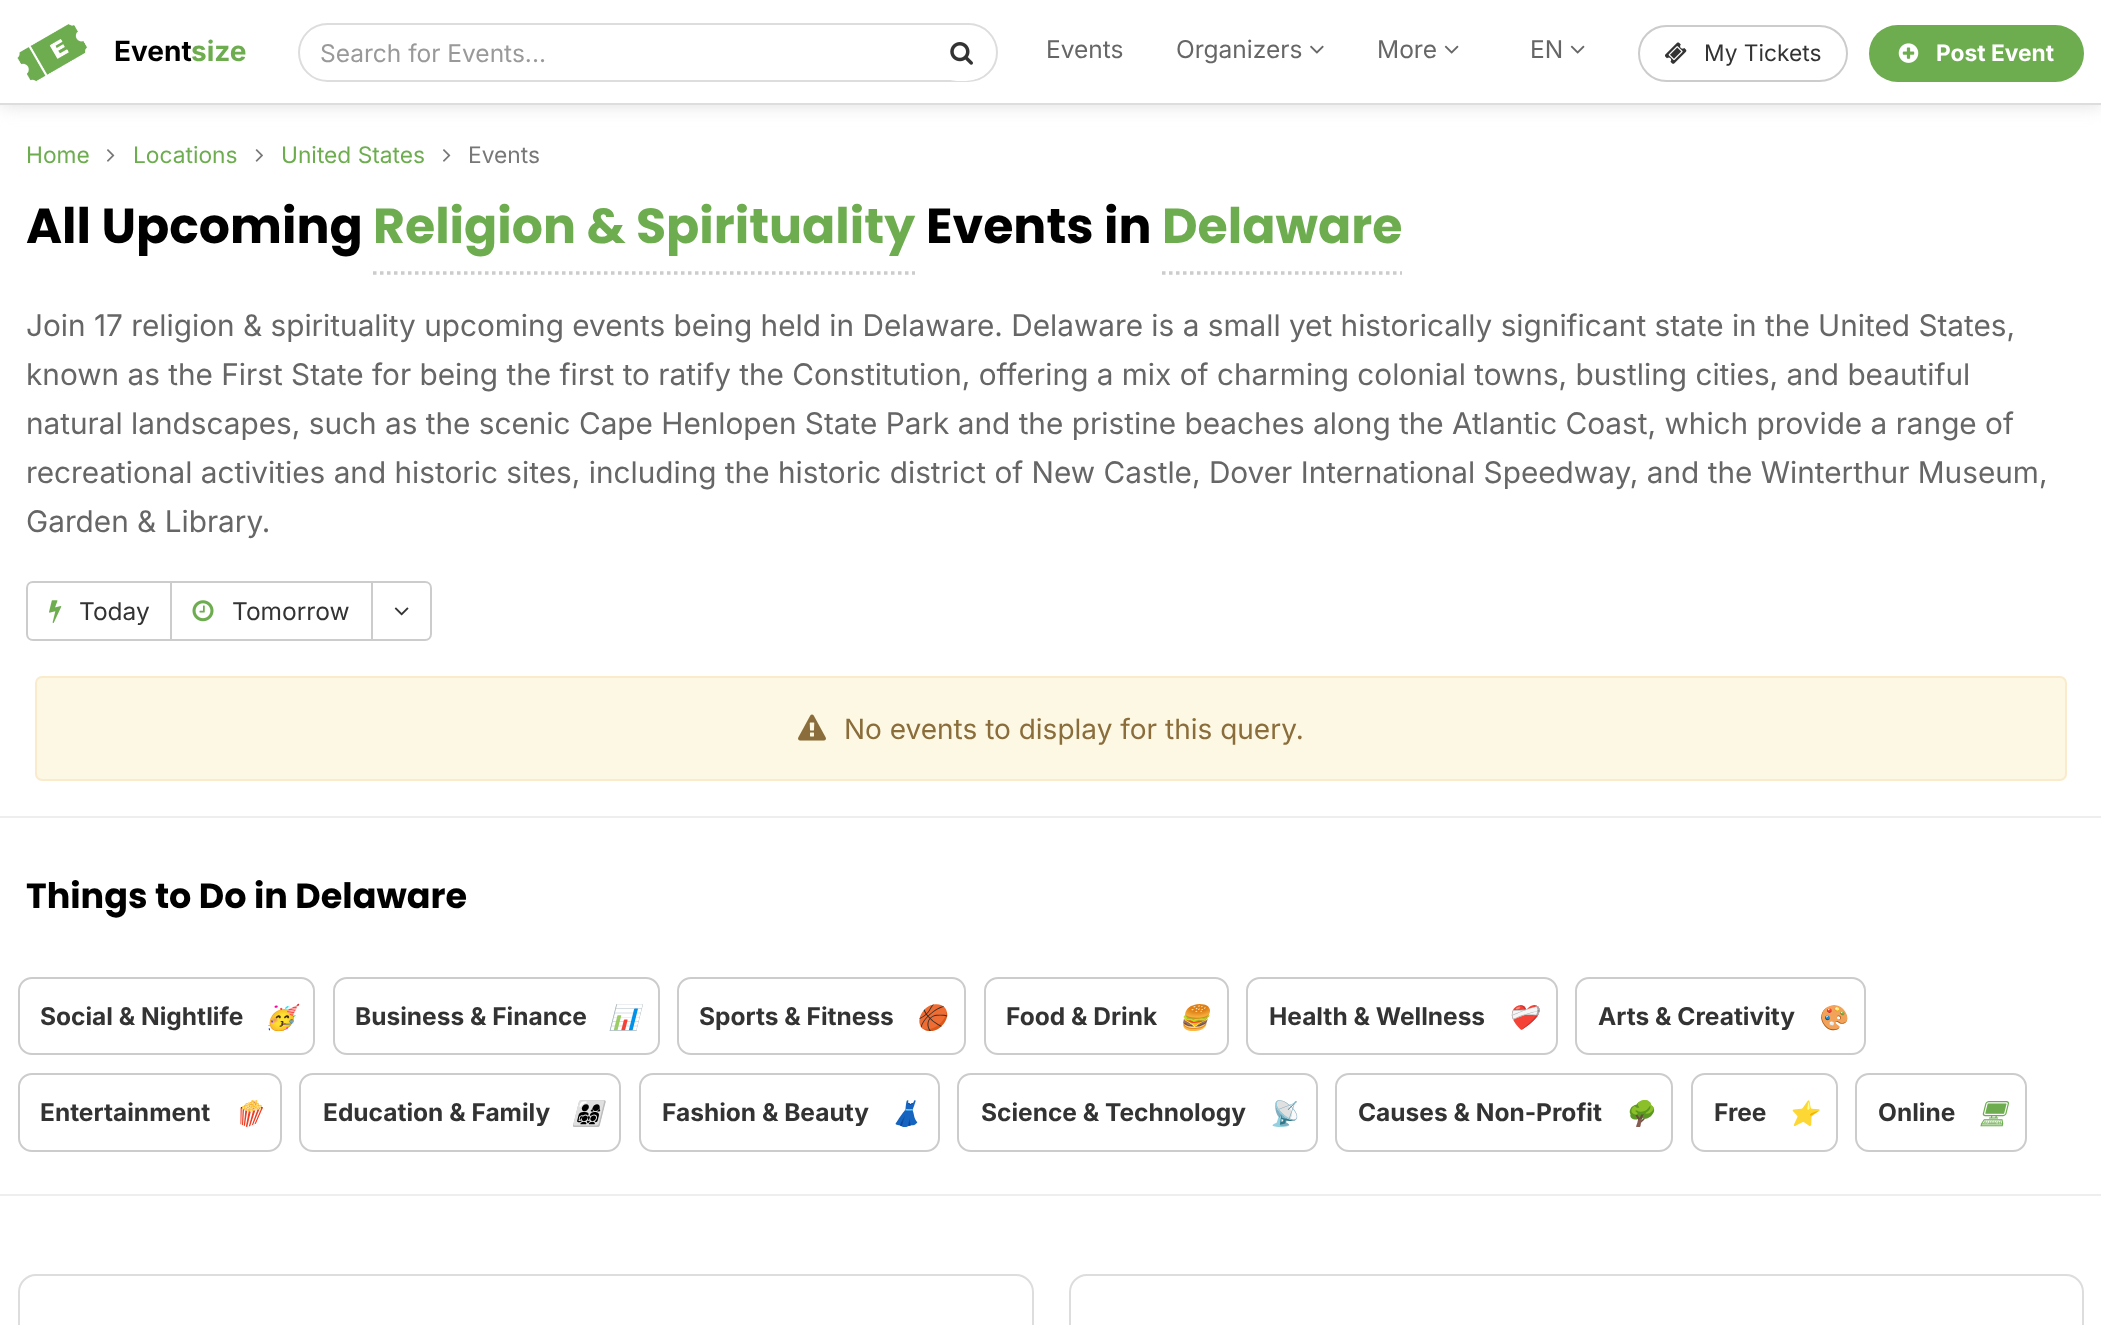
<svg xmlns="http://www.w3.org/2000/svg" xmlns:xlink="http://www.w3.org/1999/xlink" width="2101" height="1325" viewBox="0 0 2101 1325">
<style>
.cls-1{font:bold 28px Inter;fill:#000000}
.cls-2{font:bold 28px Inter;fill:#6dad4f}
.cls-3{font:24.5px Inter;fill:#999999}
.cls-4{font:24.5px Inter;fill:#666666}
.cls-5{font:22.75px Inter;fill:#333333}
.cls-6{font:bold 22.75px Inter;fill:#ffffff}
.cls-7{font:22.75px Inter;fill:#6dad4f}
.cls-8{font:22.75px Inter;fill:#777777}
.cls-9{font:bold 49px Poppins;fill:#000000}
.cls-10{font:bold 49px Poppins;fill:#6dad4f}
.cls-11{font:29.75px Inter;fill:#666666}
.cls-12{font:24.5px Inter;fill:#333333}
.cls-13{font:28px Inter;fill:#8a6d3b}
.cls-14{font:bold 35px Poppins;fill:#000000}
.cls-15{font:bold 24.5px Inter;fill:#333333}
.cls-16{font:italic bold 24.5px Noto Color Emoji;fill:#6dad4f}
.cls-17{font:italic bold 24.5px Noto Emoji;fill:#6dad4f}
</style>
<rect width="100%" height="100%" fill="#ffffff"/>
<rect fill="#dddddd" filter="blur(9px)" x="0" y="0" width="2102" height="105"/>
<rect fill="#ffffff" x="0" y="0" width="2101" height="103"/>
<rect fill="#dddddd" x="0" y="103" width="2101" height="2"/>
<image xlink:href="image0.png" x="17" y="24" width="70" height="58"/>
<rect fill="none" stroke="#dddddd" stroke-width="2" x="299" y="24" width="698" height="57" rx="28.5"/>
<rect fill="#ffffff" x="929" y="25" width="65" height="56" rx="28"/>
<image xlink:href="image1.png" x="950" y="42" width="23" height="23"/>
<image xlink:href="image2.png" x="1310" y="45" width="14" height="9"/>
<image xlink:href="image3.png" x="1444" y="45" width="15" height="9"/>
<image xlink:href="image3.png" x="1570" y="45" width="15" height="9"/>
<rect fill="none" stroke="#cccccc" stroke-width="2" x="1639" y="26" width="208" height="55" rx="27.5"/>
<image xlink:href="image4.png" x="1665" y="42" width="22" height="22"/>
<rect fill="#6dad4f" x="1869" y="25" width="215" height="57" rx="28.5"/>
<image xlink:href="image5.png" x="1898" y="43" width="21" height="20"/>
<image xlink:href="image6.png" x="107" y="149" width="8" height="13"/>
<image xlink:href="image7.png" x="255" y="149" width="8" height="13"/>
<image xlink:href="image6.png" x="443" y="149" width="8" height="13"/>
<path fill="none" stroke="#cccccc" stroke-width="3.5" stroke-dasharray="3.5 3.5" d="M373 273H915"/>
<path fill="none" stroke="#cccccc" stroke-width="3.5" stroke-dasharray="3.5 3.5" d="M1162 273H1402"/>
<path fill="none" stroke="#cccccc" stroke-width="2" d="M33 582H171V640H33C29.5 640 27 637.5 27 634V588C27 584.5 29.5 582 33 582Z"/>
<image xlink:href="image8.png" x="49" y="600" width="13" height="23"/>
<rect fill="none" stroke="#cccccc" stroke-width="2" x="171" y="582" width="201" height="58"/>
<image xlink:href="image9.png" x="192" y="600" width="22" height="22"/>
<path fill="#ffffff" stroke="#cccccc" stroke-width="2" d="M372 582H425C428.5 582 431 584.5 431 588V634C431 637.5 428.5 640 425 640H372Z"/>
<image xlink:href="image10.png" x="394" y="607" width="15" height="9"/>
<rect fill="#fcf8e3" stroke="#faebcc" stroke-width="2" x="36" y="677" width="2030" height="103" rx="6"/>
<image xlink:href="image11.png" x="798" y="714" width="28" height="27"/>
<rect fill="#eeeeee" x="0" y="816" width="2101" height="2"/>
<rect fill="none" stroke="#cccccc" stroke-width="2" x="19" y="978" width="295" height="76" rx="13"/>
<rect fill="none" stroke="#cccccc" stroke-width="2" x="334" y="978" width="325" height="76" rx="13"/>
<rect fill="none" stroke="#cccccc" stroke-width="2" x="678" y="978" width="287" height="76" rx="13"/>
<rect fill="none" stroke="#cccccc" stroke-width="2" x="985" y="978" width="243" height="76" rx="13"/>
<rect fill="none" stroke="#cccccc" stroke-width="2" x="1247" y="978" width="310" height="76" rx="13"/>
<rect fill="none" stroke="#cccccc" stroke-width="2" x="1576" y="978" width="289" height="76" rx="13"/>
<rect fill="none" stroke="#cccccc" stroke-width="2" x="19" y="1074" width="262" height="77" rx="13"/>
<rect fill="none" stroke="#cccccc" stroke-width="2" x="300" y="1074" width="320" height="77" rx="13"/>
<rect fill="none" stroke="#cccccc" stroke-width="2" x="640" y="1074" width="299" height="77" rx="13"/>
<rect fill="none" stroke="#cccccc" stroke-width="2" x="958" y="1074" width="359" height="77" rx="13"/>
<rect fill="none" stroke="#cccccc" stroke-width="2" x="1336" y="1074" width="336" height="77" rx="13"/>
<rect fill="none" stroke="#cccccc" stroke-width="2" x="1692" y="1074" width="145" height="77" rx="13"/>
<rect fill="none" stroke="#cccccc" stroke-width="2" x="1856" y="1074" width="170" height="77" rx="13"/>
<rect fill="#eeeeee" x="0" y="1194" width="2101" height="2"/>
<rect fill="none" stroke="#dddddd" stroke-width="2" x="19" y="1275" width="1014" height="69" rx="17"/>
<rect fill="none" stroke="#dddddd" stroke-width="2" x="1070" y="1275" width="1013" height="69" rx="17"/>
<text class="cls-1" x="114" y="61">Event</text>
<text class="cls-2" x="191" y="61">size</text>
<text class="cls-3" x="320" y="62">Search for Events...</text>
<text class="cls-4" x="1046" y="58">Events</text>
<text class="cls-4" x="1176" y="58">Organizers</text>
<text class="cls-4" x="1377" y="58">More</text>
<text class="cls-4" x="1530" y="58">EN</text>
<text class="cls-5" x="1704" y="61">My Tickets</text>
<text class="cls-6" x="1936" y="61">Post Event</text>
<text class="cls-7" x="26" y="163">Home</text>
<text class="cls-7" x="133" y="163">Locations</text>
<text class="cls-7" x="281" y="163">United States</text>
<text class="cls-8" x="468" y="163">Events</text>
<text class="cls-9" x="26" y="243">All Upcoming</text>
<text class="cls-10" x="373" y="243">Religion &amp; Spirituality</text>
<text class="cls-9" x="926" y="243">Events in</text>
<text class="cls-10" x="1162" y="243">Delaware</text>
<text class="cls-11"><tspan x="26" y="336">Join 17 religion &amp; spirituality upcoming events being held in Delaware. Delaware is a small yet historically significant state in the United States,</tspan><tspan x="26" y="385">known as the First State for being the first to ratify the Constitution, offering a mix of charming colonial towns, bustling cities, and beautiful</tspan><tspan x="26" y="434">natural landscapes, such as the scenic Cape Henlopen State Park and the pristine beaches along the Atlantic Coast, which provide a range of</tspan><tspan x="26" y="483">recreational activities and historic sites, including the historic district of New Castle, Dover International Speedway, and the Winterthur Museum,</tspan><tspan x="26" y="532">Garden &amp; Library.</tspan></text>
<text class="cls-12" x="79" y="620">Today</text>
<text class="cls-12" x="232" y="620">Tomorrow</text>
<text class="cls-13" x="844" y="739">No events to display for this query.</text>
<text class="cls-14" x="26" y="908">Things to Do in Delaware</text>
<text class="cls-15" x="40" y="1025">Social &amp; Nightlife</text>
<text class="cls-16" x="265" y="1026">🥳</text>
<text class="cls-15" x="355" y="1025">Business &amp; Finance</text>
<text class="cls-16" x="609" y="1026">📊</text>
<text class="cls-15" x="699" y="1025">Sports &amp; Fitness</text>
<text class="cls-16" x="916" y="1026">🏀</text>
<text class="cls-15" x="1006" y="1025">Food &amp; Drink</text>
<text class="cls-16" x="1179" y="1026">🍔</text>
<text class="cls-15" x="1269" y="1025">Health &amp; Wellness</text>
<text class="cls-16" x="1507" y="1026">❤️‍🩹</text>
<text class="cls-15" x="1598" y="1025">Arts &amp; Creativity</text>
<text class="cls-16" x="1817" y="1026">🎨</text>
<text class="cls-15" x="40" y="1121">Entertainment</text>
<text class="cls-16" x="233" y="1122">🍿</text>
<text class="cls-15" x="323" y="1121">Education &amp; Family</text>
<text class="cls-16" x="572" y="1122">👨‍👩‍👧‍👦</text>
<text class="cls-15" x="662" y="1121">Fashion &amp; Beauty</text>
<text class="cls-16" x="891" y="1122">👗</text>
<text class="cls-15" x="981" y="1121">Science &amp; Technology</text>
<text class="cls-16" x="1268" y="1122">📡</text>
<text class="cls-15" x="1358" y="1121">Causes &amp; Non-Profit</text>
<text class="cls-16" x="1624" y="1122">🌳</text>
<text class="cls-15" x="1714" y="1121">Free</text>
<text class="cls-16" x="1788" y="1122">⭐️</text>
<text class="cls-15" x="1878" y="1121">Online</text>
<text class="cls-17" x="1977" y="1122">🖥</text>
</svg>
